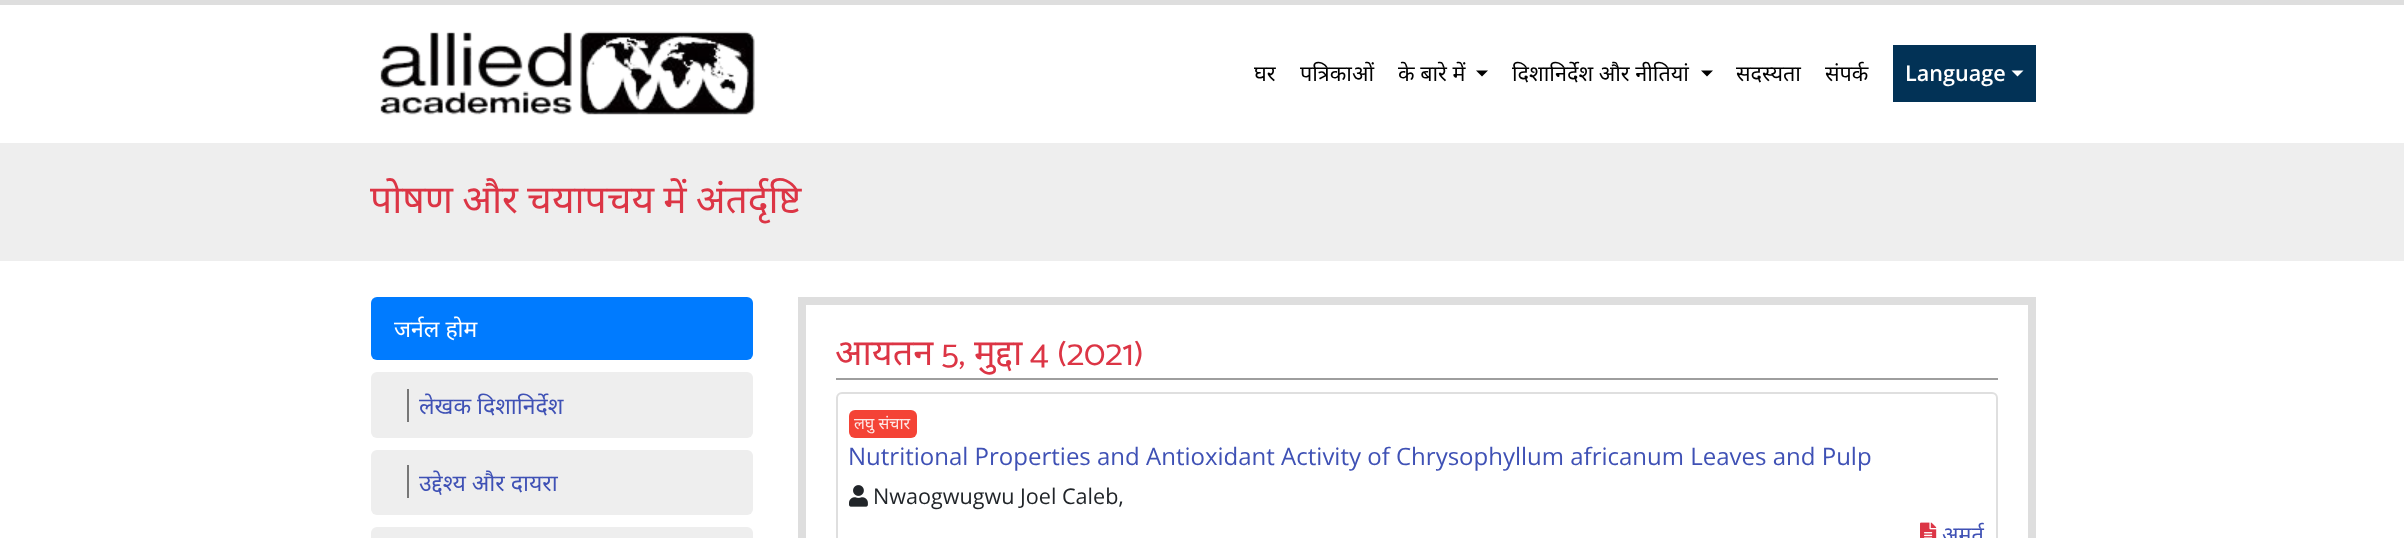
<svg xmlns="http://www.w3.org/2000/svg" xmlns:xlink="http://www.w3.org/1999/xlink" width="2404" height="538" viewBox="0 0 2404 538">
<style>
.cls-1{font:21.6px Noto Sans;fill:#000000}
.cls-2{font:600 21.6px Open Sans;fill:#ffffff}
.cls-3{font:39px Noto Sans;fill:#dc3545}
.cls-4{font:23px Noto Sans;fill:#ffffff}
.cls-5{font:23px Noto Sans;fill:#3f51b5}
.cls-6{font:36px Noto Sans;fill:#dc3545}
.cls-7{font:36px Catamaran;fill:#dc3545}
.cls-8{font:16px Noto Sans;fill:#fee7e5}
.cls-9{font:24px Open Sans;fill:#3f51b5}
.cls-10{font:21.6px Open Sans;fill:#212529}
.cls-11{font:21.6px Noto Sans;fill:#3f51b5}
</style>
<rect width="100%" height="100%" fill="#ffffff"/>
<rect fill="#dedede" x="0" y="0" width="2404" height="5"/>
<image xlink:href="image0.png" x="380" y="31" width="375" height="84"/>
<path fill="#000000" d="M1476 70.5H1488L1482 76.5Z"/>
<path fill="#000000" d="M1701 70.5H1713L1707 76.5Z"/>
<rect fill="#023256" x="1893" y="45" width="143" height="57"/>
<path fill="#ffffff" d="M2011.5 70.5H2023.5L2017.5 76.5Z"/>
<rect fill="#eeeeee" x="0" y="143" width="2404" height="118"/>
<rect fill="#007bff" x="371" y="297" width="382" height="63" rx="6"/>
<rect fill="#eeeeee" x="371" y="372" width="382" height="66" rx="6"/>
<rect fill="#777777" x="407" y="389" width="2" height="33"/>
<rect fill="#eeeeee" x="371" y="450" width="382" height="65" rx="6"/>
<rect fill="#777777" x="407" y="465" width="2" height="33"/>
<rect fill="#eeeeee" x="371" y="527" width="382" height="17" rx="6"/>
<rect fill="none" stroke="#dedede" stroke-width="8" x="802" y="301" width="1230" height="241"/>
<rect fill="#9e9e9e" x="836" y="378" width="1162" height="2"/>
<rect fill="none" stroke="#dfdfdf" stroke-width="2" x="837" y="393" width="1160" height="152" rx="5"/>
<rect fill="#f44336" x="849" y="410" width="68" height="28" rx="6"/>
<image xlink:href="image1.png" x="849" y="485" width="19" height="22"/>
<image xlink:href="image2.png" x="1920" y="522" width="17" height="16"/>
<text class="cls-1" x="1254" y="81">घर</text>
<text class="cls-1" x="1300" y="81">पत्रिकाओं</text>
<text class="cls-1" x="1398" y="81">के बारे में</text>
<text class="cls-1" x="1512" y="81">दिशानिर्देश और नीतियां</text>
<text class="cls-1" x="1736" y="81">सदस्यता</text>
<text class="cls-1" x="1825" y="81">संपर्क</text>
<text class="cls-2" x="1905" y="81">Language</text>
<text class="cls-3" x="370" y="213" word-spacing="-1">पोषण और चयापचय में अंतर्दृष्टि</text>
<text class="cls-4" x="394" y="337">जर्नल होम</text>
<text class="cls-5" x="419" y="414">लेखक दिशानिर्देश</text>
<text class="cls-5" x="419" y="491">उद्देश्य और दायरा</text>
<text class="cls-6" x="835" y="365">आयतन</text>
<text class="cls-7" x="941" y="365">5,</text>
<text class="cls-6" x="974" y="365">मुद्दा</text>
<text class="cls-7" x="1030" y="365">4 (2021)</text>
<text class="cls-8" x="854" y="429">लघु संचार</text>
<text class="cls-9" x="848" y="465">Nutritional Properties and Antioxidant Activity of Chrysophyllum africanum Leaves and Pulp</text>
<text class="cls-10" x="873" y="504">Nwaogwugwu Joel Caleb,</text>
<text class="cls-11" x="1942" y="542">अमूर्त</text>
</svg>
